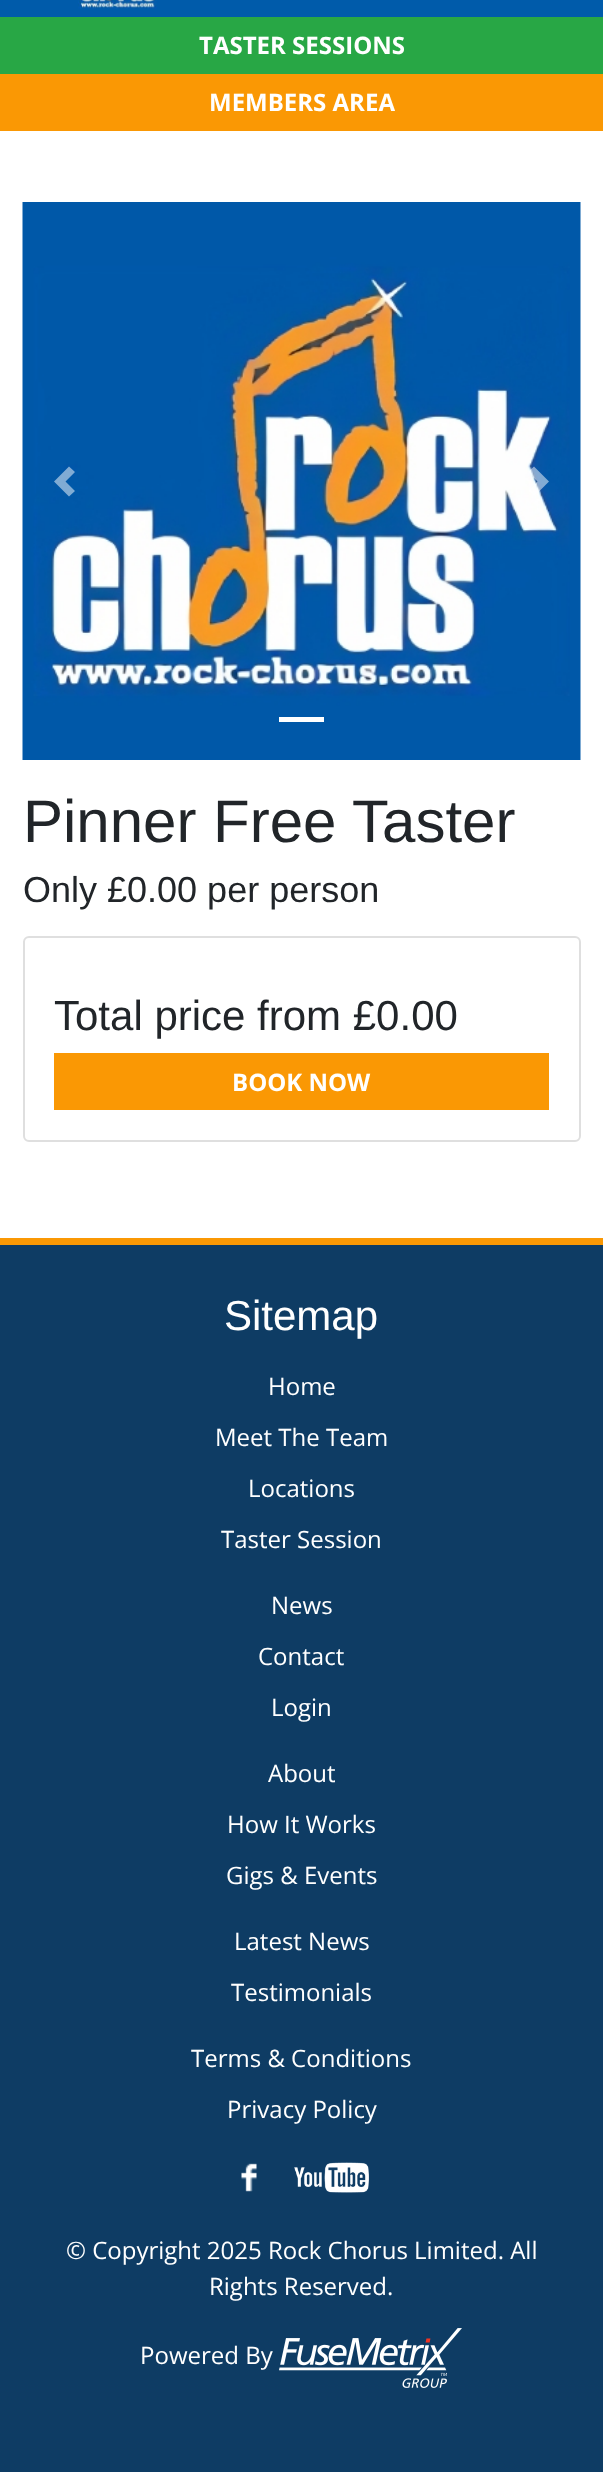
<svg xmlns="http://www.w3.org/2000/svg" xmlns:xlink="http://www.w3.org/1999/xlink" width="603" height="2472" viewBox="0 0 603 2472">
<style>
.cls-1{font:bold 24px Open Sans;fill:#ffffff}
.cls-2{font:60px Liberation Sans;fill:#212529}
.cls-3{font:36px Liberation Sans;fill:#212529}
.cls-4{font:42px Liberation Sans;fill:#212529}
.cls-5{font:42px Liberation Sans;fill:#ffffff}
.cls-6{font:24px Open Sans;fill:#ffffff}
</style>
<rect width="100%" height="100%" fill="#ffffff"/>
<rect fill="#005baa" x="0" y="0" width="603" height="17"/>
<image xlink:href="image0.png" x="78" y="0" width="79" height="9"/>
<rect fill="#28a745" x="0" y="17" width="603" height="57"/>
<rect fill="#fa9804" x="0" y="74" width="603" height="57"/>
<image xlink:href="image1.png" x="22" y="202" width="559" height="558"/>
<path fill="#ffffff" fill-opacity="0.5" d="M69 466.5L54 481.5L69 496.5L75 491L65.5 481.5L75 472Z"/>
<path fill="#ffffff" fill-opacity="0.5" d="M534 466.5L528 472L537.5 481.5L528 491L534 496.5L549 481.5Z"/>
<rect fill="#ffffff" x="279" y="717" width="45" height="5"/>
<rect fill="none" stroke="#dfdfdf" stroke-width="2" x="24" y="937" width="556" height="204" rx="5"/>
<rect fill="#fa9804" x="54" y="1053" width="495" height="57"/>
<rect fill="#0e3c64" x="0" y="1245" width="603" height="1227"/>
<rect fill="#fa9804" x="0" y="1238" width="603" height="7"/>
<image xlink:href="image2.png" x="241" y="2163" width="16" height="29"/>
<image xlink:href="image3.png" x="294" y="2162" width="75" height="31"/>
<image xlink:href="image4.png" x="279" y="2328" width="183" height="60"/>
<text class="cls-1" x="199" y="54">TASTER SESSIONS</text>
<text class="cls-1" x="209" y="111">MEMBERS AREA</text>
<text class="cls-2" x="23" y="842">Pinner Free Taster</text>
<text class="cls-3" x="23" y="902">Only £0.00 per person</text>
<text class="cls-4" x="54" y="1030">Total price from £0.00</text>
<text class="cls-1" x="232" y="1091">BOOK NOW</text>
<text class="cls-5" x="224" y="1330">Sitemap</text>
<text class="cls-6" x="268" y="1395">Home</text>
<text class="cls-6" x="215" y="1446">Meet The Team</text>
<text class="cls-6" x="248" y="1497">Locations</text>
<text class="cls-6" x="221" y="1548">Taster Session</text>
<text class="cls-6" x="271" y="1614">News</text>
<text class="cls-6" x="258" y="1665">Contact</text>
<text class="cls-6" x="271" y="1716">Login</text>
<text class="cls-6" x="268" y="1782">About</text>
<text class="cls-6" x="227" y="1833">How It Works</text>
<text class="cls-6" x="226" y="1884">Gigs &amp; Events</text>
<text class="cls-6" x="234" y="1950">Latest News</text>
<text class="cls-6" x="231" y="2001">Testimonials</text>
<text class="cls-6" x="191" y="2067">Terms &amp; Conditions</text>
<text class="cls-6" x="227" y="2118">Privacy Policy</text>
<text class="cls-6" x="66" y="2259">© Copyright 2025 Rock Chorus Limited. All</text>
<text class="cls-6" x="209" y="2295">Rights Reserved.</text>
<text class="cls-6" x="140" y="2364">Powered By</text>
</svg>
